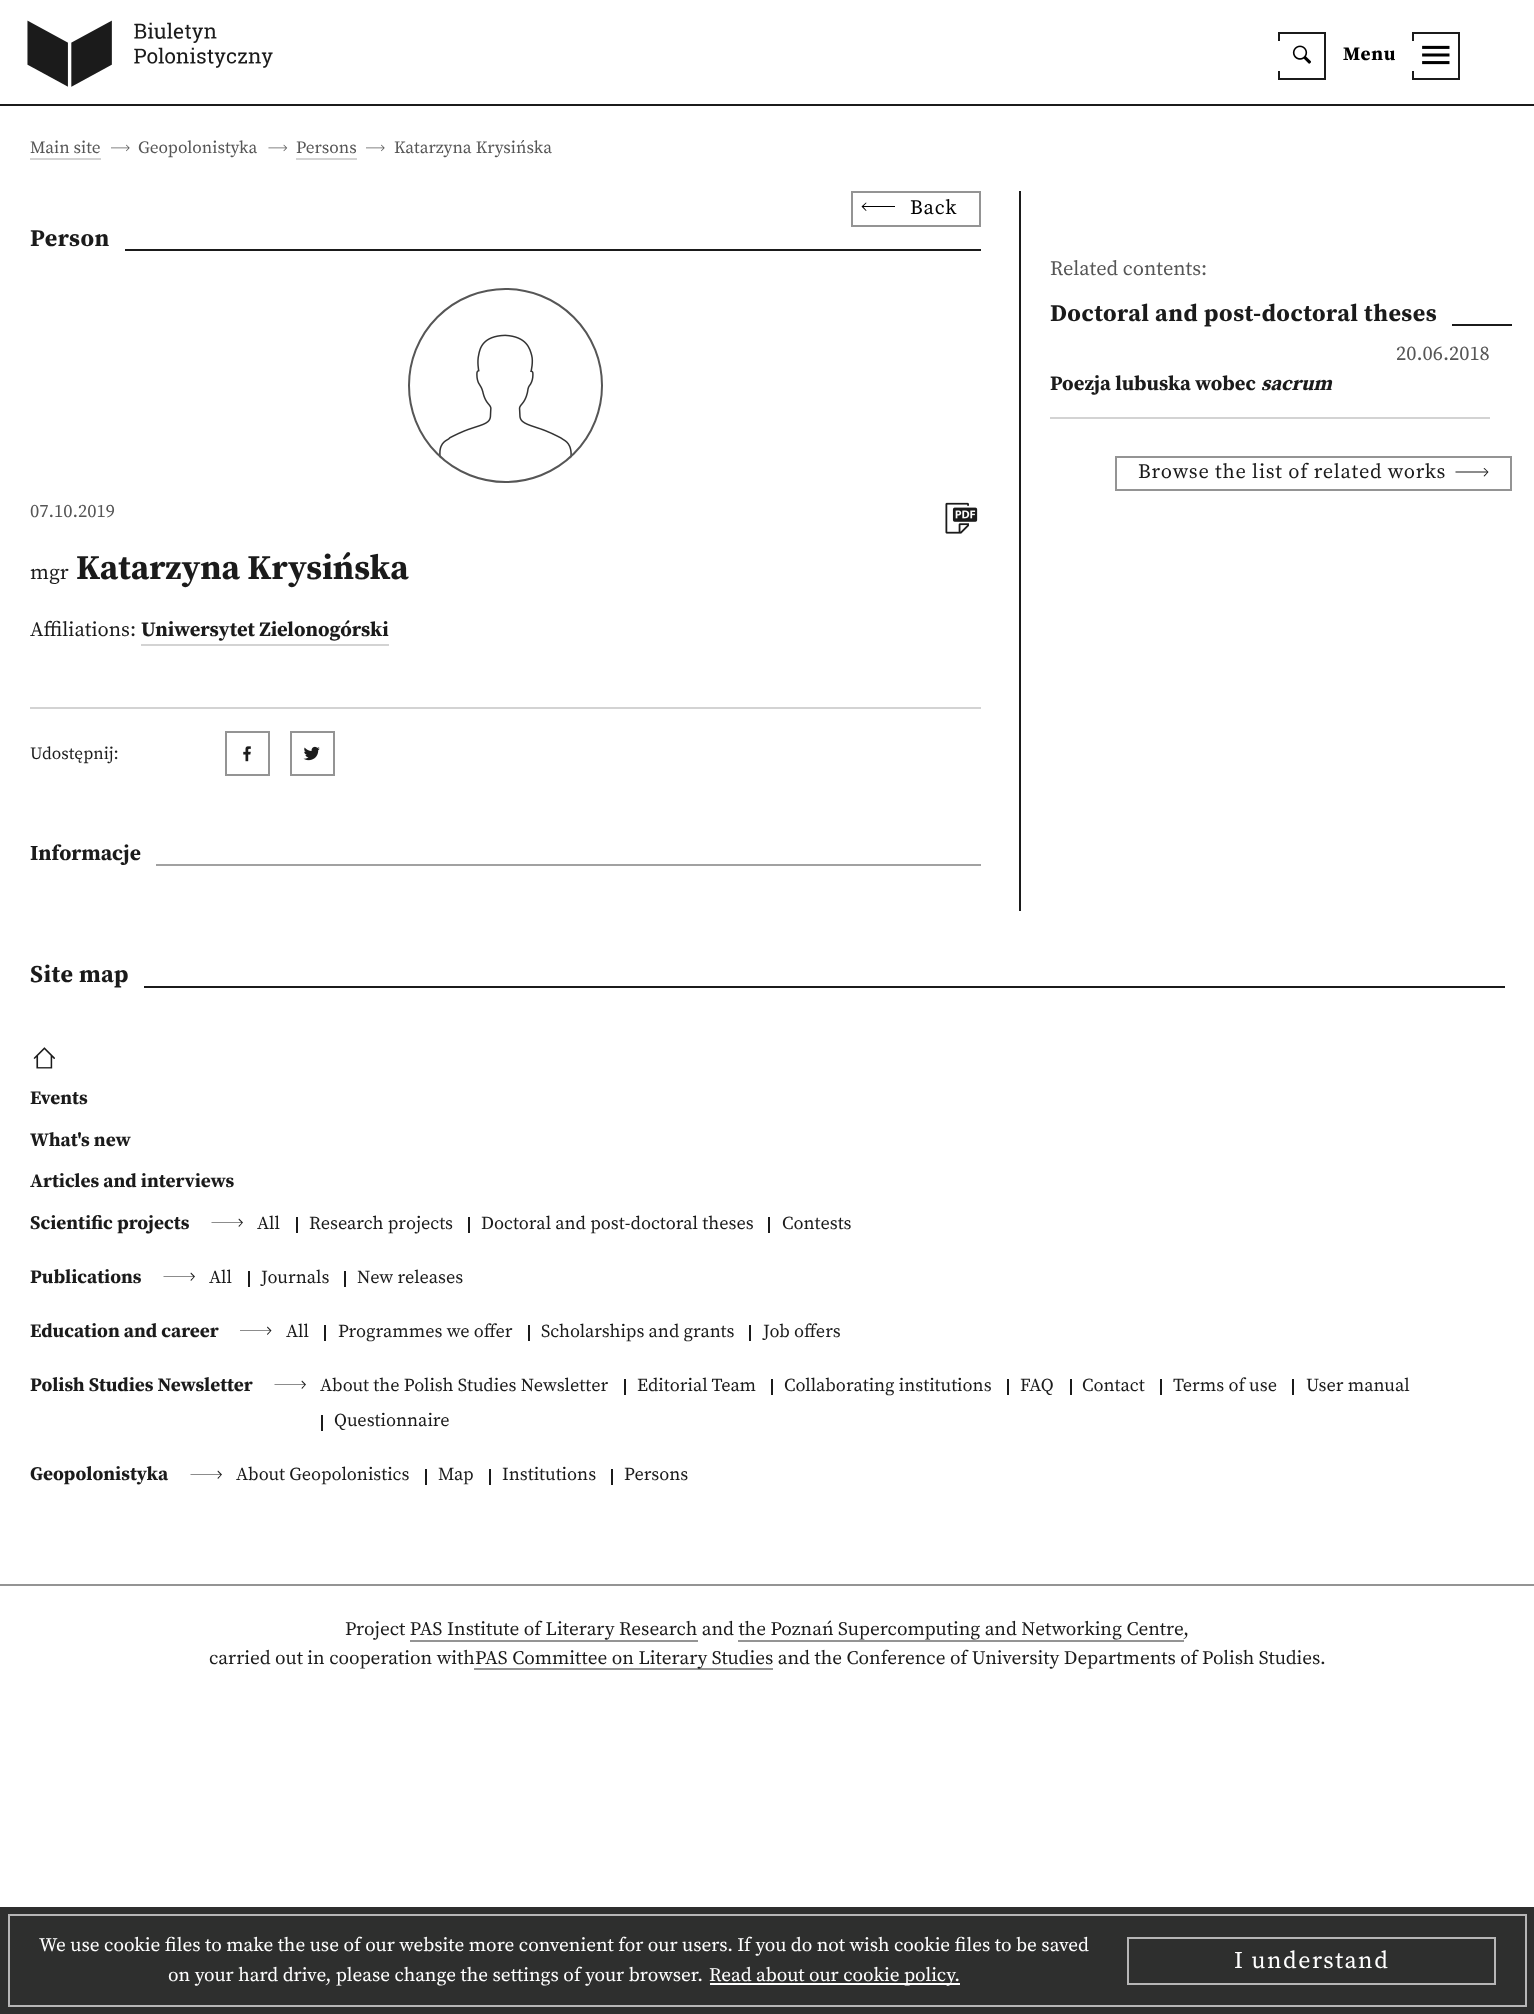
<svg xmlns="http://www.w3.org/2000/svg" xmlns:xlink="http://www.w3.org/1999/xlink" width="1534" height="2014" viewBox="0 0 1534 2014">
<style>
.cls-1{font:bold 19.2px Source Serif Pro;letter-spacing:0.75px;fill:#000000}
.cls-2{font:17.25px Source Serif Pro;fill:#565656}
.cls-3{font:20.4px Source Serif Pro;letter-spacing:0.75px;fill:#000000}
.cls-4{font:bold 24px Source Serif Pro;letter-spacing:0.45px;fill:#1b1b1b}
.cls-5{font:18.5px Source Serif Pro;fill:#565656}
.cls-6{font:21px Source Serif Pro;fill:#1b1b1b}
.cls-7{font:bold 34.75px Source Serif Pro;fill:#1b1b1b}
.cls-8{font:20.4px Source Serif Pro;fill:#1b1b1b}
.cls-9{font:bold 20.4px Source Serif Pro;fill:#1b1b1b}
.cls-10{font:17.25px Source Serif Pro;fill:#1b1b1b}
.cls-11{font:bold 21.5px Source Serif Pro;fill:#1b1b1b}
.cls-12{font:20.4px Source Serif Pro;fill:#565656}
.cls-13{font:italic bold 20.4px Source Serif Pro;fill:#1b1b1b}
.cls-14{font:20.4px Source Serif Pro;letter-spacing:0.75px;fill:#1b1b1b}
.cls-15{font:bold 19.2px Source Serif Pro;fill:#1b1b1b}
.cls-16{font:18.25px Source Serif Pro;fill:#1b1b1b}
.cls-17{font:19.2px Source Serif Pro;fill:#1b1b1b}
.cls-18{font:19.2px Source Serif Pro;fill:#ffffff}
.cls-19{font:24px Source Serif Pro;letter-spacing:1.5px;fill:#ffffff}
</style>
<rect width="100%" height="100%" fill="#ffffff"/>
<rect fill="#1b1b1b" x="0" y="104" width="1534" height="2"/>
<image xlink:href="image0.png" x="27" y="20" width="246" height="67"/>
<rect fill="none" stroke="#1b1b1b" stroke-width="2" x="1279" y="33" width="46" height="46"/>
<rect fill="#ffffff" x="1278" y="41" width="2" height="30"/>
<image xlink:href="image1.png" x="1292" y="45" width="19" height="19"/>
<rect fill="none" stroke="#1b1b1b" stroke-width="2" x="1413" y="33" width="46" height="46"/>
<rect fill="#ffffff" x="1412" y="41" width="2" height="30"/>
<image xlink:href="image2.png" x="1422" y="45" width="28" height="20"/>
<rect fill="#d3d3d3" x="30" y="158" width="71" height="2"/>
<image xlink:href="image3.png" x="111" y="144" width="19" height="8"/>
<image xlink:href="image4.png" x="268" y="144" width="20" height="8"/>
<rect fill="#d3d3d3" x="296" y="158" width="61" height="2"/>
<image xlink:href="image3.png" x="366" y="144" width="19" height="8"/>
<rect fill="#1b1b1b" x="1019" y="191" width="2" height="720"/>
<rect fill="none" stroke="#949494" stroke-width="2" x="852" y="192" width="128" height="34"/>
<path fill="#000000" d="M861.5 206.5L866 202.5L866.5 203L863.5 206H895V207H863.5L866.5 210.5L866 211Z"/>
<rect fill="#1b1b1b" x="125" y="249" width="856" height="2"/>
<image xlink:href="image5.png" x="439" y="334" width="133" height="125"/>
<circle fill="none" stroke="#565656" stroke-width="2" cx="505.5" cy="385.5" r="96.5"/>
<image xlink:href="image6.png" x="945" y="502" width="33" height="32"/>
<rect fill="#d3d3d3" x="141" y="644" width="248" height="2"/>
<rect fill="#d3d3d3" x="30" y="707" width="951" height="2"/>
<rect fill="none" stroke="#949494" stroke-width="2" x="226" y="732" width="43" height="43"/>
<image xlink:href="image7.png" x="243" y="746" width="8" height="16"/>
<rect fill="none" stroke="#949494" stroke-width="2" x="291" y="732" width="43" height="43"/>
<image xlink:href="image8.png" x="303" y="746" width="17" height="15"/>
<rect fill="#a1a1a1" x="156" y="864" width="825" height="2"/>
<rect fill="#1b1b1b" x="1452" y="324" width="60" height="2"/>
<rect fill="#d3d3d3" x="1050" y="417" width="440" height="2"/>
<rect fill="none" stroke="#949494" stroke-width="2" x="1116" y="457" width="395" height="33"/>
<path fill="#1b1b1b" d="M1488.5 472L1484.5 476.5L1483.5 476L1487 472.5H1455.5V471.5H1487L1483.5 468.5L1484.5 468Z"/>
<rect fill="#1b1b1b" x="144" y="986" width="1361" height="2"/>
<image xlink:href="image9.png" x="33" y="1047" width="22" height="22"/>
<path fill="#1b1b1b" d="M243 1222.5L239 1227L238.5 1226L241.5 1223H211.5V1222.5H241.5L238.5 1219.5L239 1218.5Z"/>
<rect fill="#1b1b1b" x="296" y="1217" width="2" height="16"/>
<rect fill="#1b1b1b" x="468" y="1217" width="2" height="16"/>
<rect fill="#1b1b1b" x="768" y="1217" width="2" height="16"/>
<path fill="#1b1b1b" d="M195 1276.5L191 1281L190.5 1280L193.5 1277H163.5V1276.5H193.5L190.5 1273.5L191 1272.5Z"/>
<rect fill="#1b1b1b" x="248" y="1271" width="2" height="16"/>
<rect fill="#1b1b1b" x="344" y="1271" width="2" height="16"/>
<path fill="#1b1b1b" d="M271.5 1330.5L267.5 1335L267 1334L270 1331H240V1330.5H270L267 1327.5L267.5 1326.5Z"/>
<rect fill="#1b1b1b" x="324" y="1325" width="2" height="16"/>
<rect fill="#1b1b1b" x="528" y="1325" width="2" height="16"/>
<rect fill="#1b1b1b" x="749" y="1325" width="2" height="16"/>
<path fill="#1b1b1b" d="M306 1384.5L302 1389L301.5 1388L304.5 1385H274.5V1384.5H304.5L301.5 1381.5L302 1380.5Z"/>
<rect fill="#1b1b1b" x="624" y="1379" width="2" height="16"/>
<rect fill="#1b1b1b" x="771" y="1379" width="2" height="16"/>
<rect fill="#1b1b1b" x="1007" y="1379" width="2" height="16"/>
<rect fill="#1b1b1b" x="1070" y="1379" width="2" height="16"/>
<rect fill="#1b1b1b" x="1160" y="1379" width="2" height="16"/>
<rect fill="#1b1b1b" x="1292" y="1379" width="2" height="16"/>
<rect fill="#1b1b1b" x="321" y="1415" width="2" height="16"/>
<path fill="#1b1b1b" d="M222 1474.5L218 1479L217.5 1478L220.5 1475H190.5V1474.5H220.5L217.5 1471.5L218 1470.5Z"/>
<rect fill="#1b1b1b" x="425" y="1469" width="2" height="16"/>
<rect fill="#1b1b1b" x="489" y="1469" width="2" height="16"/>
<rect fill="#1b1b1b" x="611" y="1469" width="2" height="16"/>
<rect fill="#949494" x="0" y="1584" width="1534" height="2"/>
<rect fill="#949494" x="410" y="1640" width="288" height="2"/>
<rect fill="#949494" x="738" y="1640" width="446" height="2"/>
<rect fill="#2e2f2e" x="0" y="1907" width="1534" height="107"/>
<rect fill="none" stroke="#b6b6b6" stroke-width="2" x="9" y="1915" width="1517" height="91"/>
<rect fill="#ffffff" x="710" y="1983" width="250" height="2"/>
<rect fill="none" stroke="#b6b6b6" stroke-width="2" x="1128" y="1938" width="367" height="46"/>
<text class="cls-1" x="1343" y="60">Menu</text>
<text class="cls-2" x="30" y="153">Main site</text>
<text class="cls-2" x="138" y="153">Geopolonistyka</text>
<text class="cls-2" x="296" y="153">Persons</text>
<text class="cls-2" x="394" y="153">Katarzyna Krysińska</text>
<text class="cls-3" x="910" y="214">Back</text>
<text class="cls-4" x="30" y="246">Person</text>
<text class="cls-5" x="30" y="517">07.10.2019</text>
<text class="cls-6" x="30" y="579">mgr</text>
<text class="cls-7" x="76" y="579">Katarzyna Krysińska</text>
<text class="cls-8" x="30" y="636">Affiliations:</text>
<text class="cls-9" x="141" y="636">Uniwersytet Zielonogórski</text>
<text class="cls-10" x="30" y="759">Udostępnij:</text>
<text class="cls-11" x="30" y="860">Informacje</text>
<text class="cls-12" x="1050" y="275">Related contents:</text>
<text class="cls-4" x="1050" y="321">Doctoral and post-doctoral theses</text>
<text class="cls-12" x="1396" y="360">20.06.2018</text>
<text class="cls-9" x="1050" y="390">Poezja lubuska wobec</text>
<text class="cls-13" x="1261" y="390">sacrum</text>
<text class="cls-14" x="1138" y="478">Browse the list of related works</text>
<text class="cls-4" x="30" y="982">Site map</text>
<text class="cls-15" x="30" y="1104">Events</text>
<text class="cls-15" x="30" y="1146">What's new</text>
<text class="cls-15" x="30" y="1187">Articles and interviews</text>
<text class="cls-15" x="30" y="1229">Scientific projects</text>
<text class="cls-16" x="257" y="1229">All</text>
<text class="cls-16" x="309" y="1229">Research projects</text>
<text class="cls-16" x="481" y="1229">Doctoral and post-doctoral theses</text>
<text class="cls-16" x="782" y="1229">Contests</text>
<text class="cls-15" x="30" y="1283">Publications</text>
<text class="cls-16" x="209" y="1283">All</text>
<text class="cls-16" x="261" y="1283">Journals</text>
<text class="cls-16" x="357" y="1283">New releases</text>
<text class="cls-15" x="30" y="1337">Education and career</text>
<text class="cls-16" x="286" y="1337">All</text>
<text class="cls-16" x="338" y="1337">Programmes we offer</text>
<text class="cls-16" x="541" y="1337">Scholarships and grants</text>
<text class="cls-16" x="763" y="1337">Job offers</text>
<text class="cls-15" x="30" y="1391">Polish Studies Newsletter</text>
<text class="cls-16" x="320" y="1391">About the Polish Studies Newsletter</text>
<text class="cls-16" x="637" y="1391">Editorial Team</text>
<text class="cls-16" x="784" y="1391">Collaborating institutions</text>
<text class="cls-16" x="1020" y="1391">FAQ</text>
<text class="cls-16" x="1082" y="1391">Contact</text>
<text class="cls-16" x="1173" y="1391">Terms of use</text>
<text class="cls-16" x="1306" y="1391">User manual</text>
<text class="cls-16" x="334" y="1426">Questionnaire</text>
<text class="cls-15" x="30" y="1480">Geopolonistyka</text>
<text class="cls-16" x="236" y="1480">About Geopolonistics</text>
<text class="cls-16" x="438" y="1480">Map</text>
<text class="cls-16" x="502" y="1480">Institutions</text>
<text class="cls-16" x="624" y="1480">Persons</text>
<text class="cls-17" x="345" y="1635">Project PAS Institute of Literary Research and the Poznań Supercomputing and Networking Centre,</text>
<text class="cls-17" x="209" y="1664">carried out in cooperation with</text>
<rect fill="#949494" x="474" y="1668" width="299" height="2"/>
<text class="cls-17" x="475" y="1664">PAS Committee on Literary Studies and the Conference of University Departments of Polish Studies.</text>
<text class="cls-18" x="39" y="1951">We use cookie files to make the use of our website more convenient for our users. If you do not wish cookie files to be saved</text>
<text class="cls-18" x="168" y="1981">on your hard drive, please change the settings of your browser.</text>
<text class="cls-18" x="709" y="1981">Read about our cookie policy.</text>
<text class="cls-19" x="1234" y="1968">I understand</text>
</svg>
